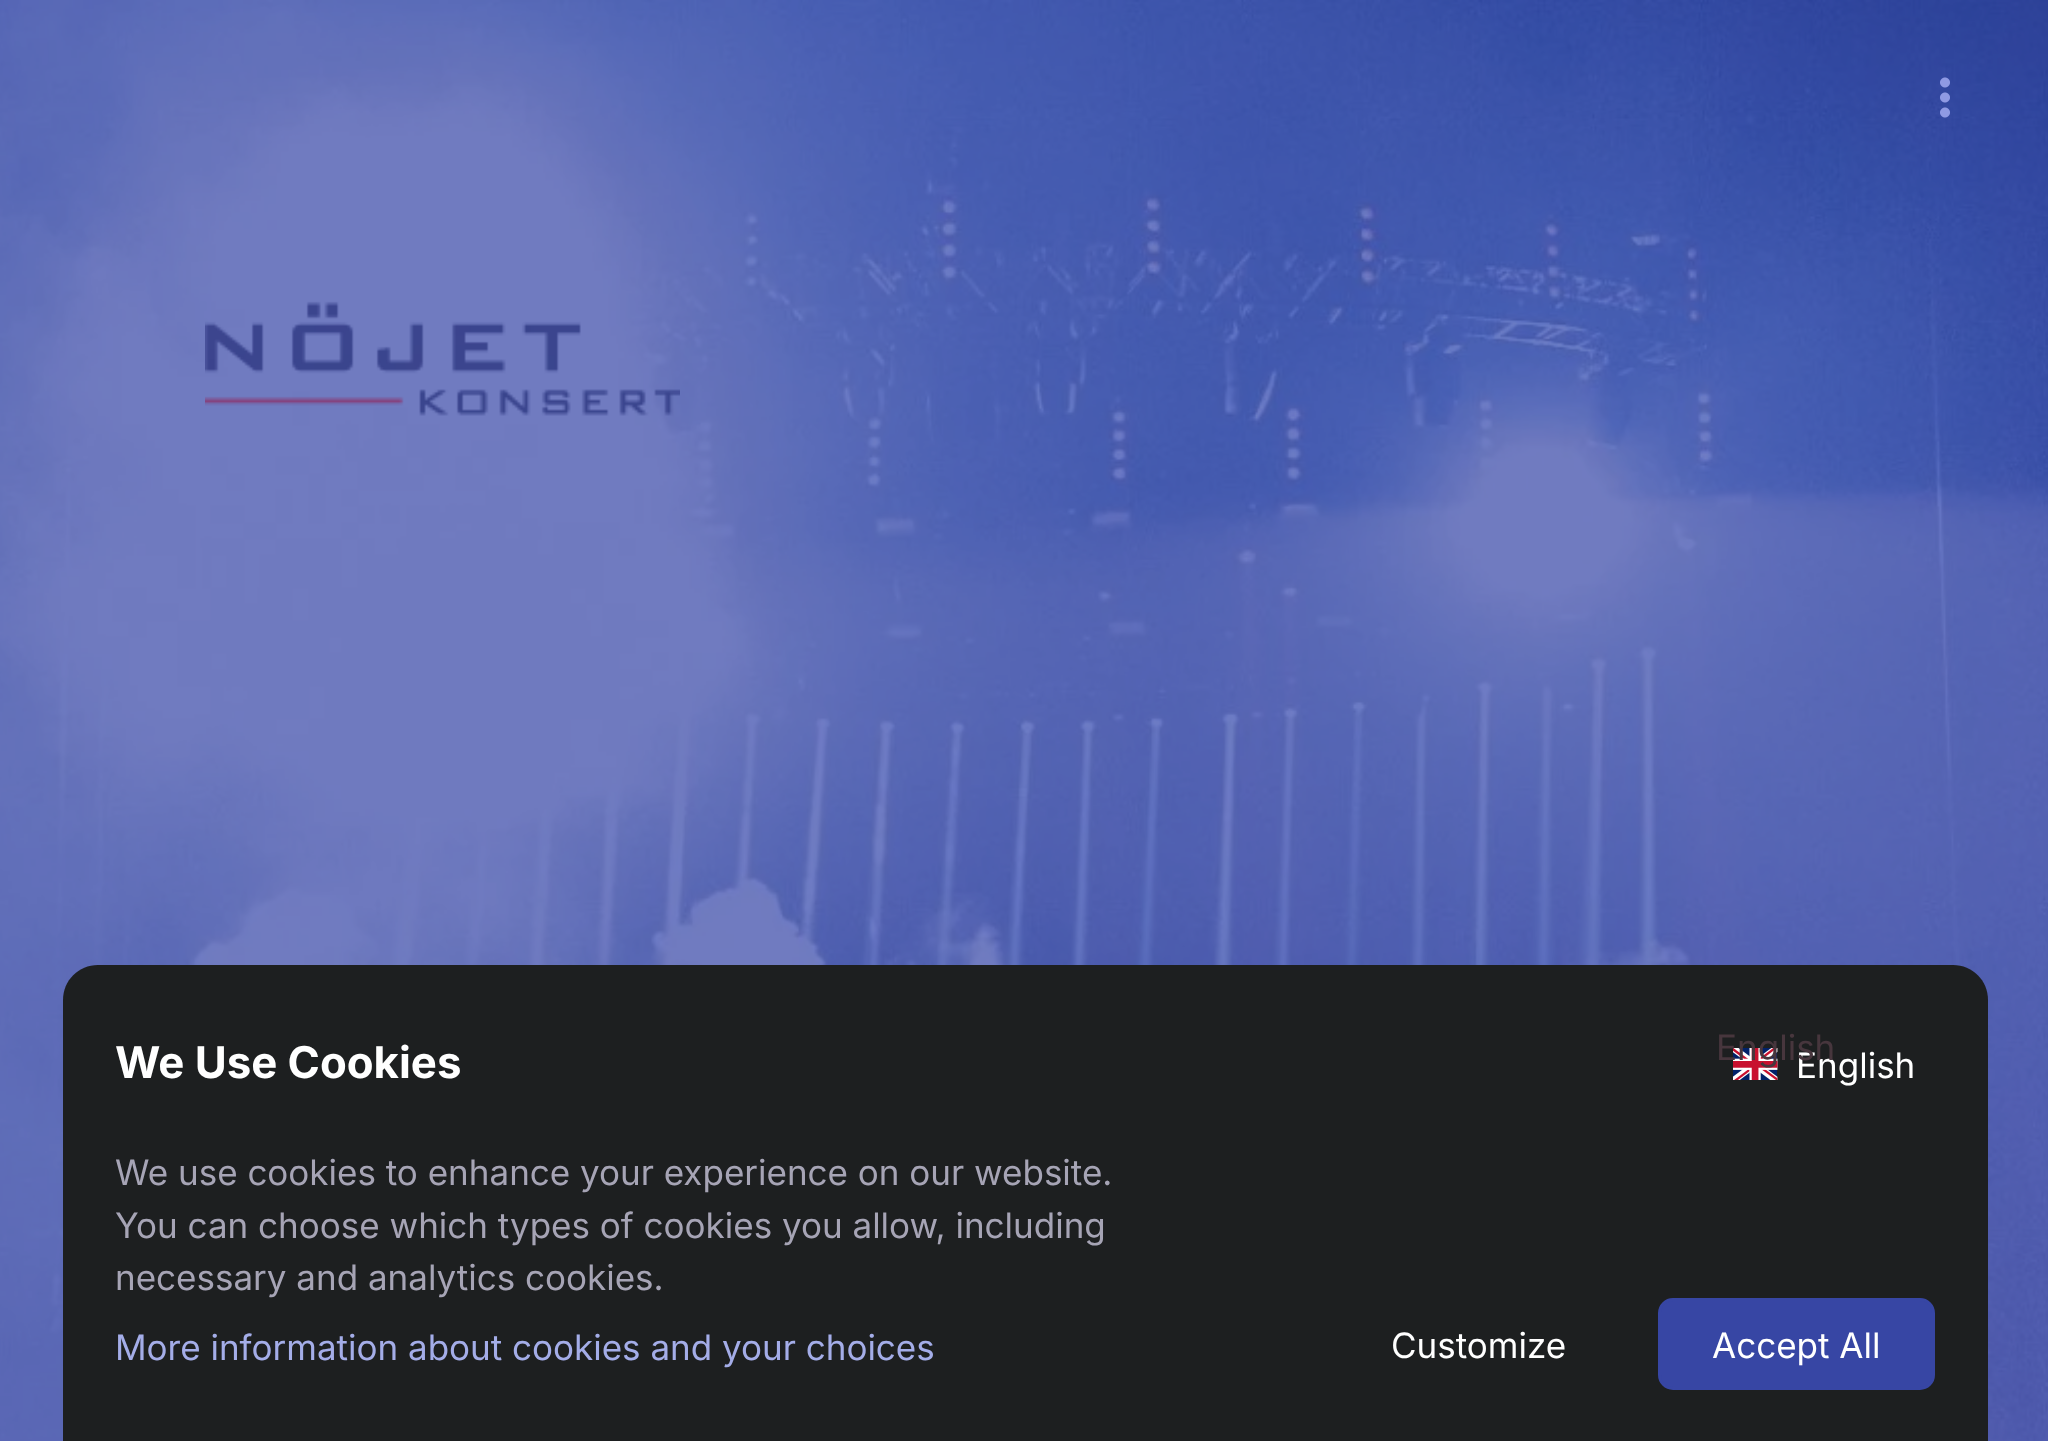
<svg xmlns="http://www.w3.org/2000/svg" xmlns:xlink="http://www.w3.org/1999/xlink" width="2048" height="1441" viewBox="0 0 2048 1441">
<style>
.cls-1{font:bold 43.75px Inter;fill:#ffffff}
.cls-2{font:35px Inter;fill:#ffffff}
.cls-3{font:35px Inter;fill:#47363d}
.cls-4{font:35px Inter;fill:#a6a4b5}
.cls-5{font:35px Inter;fill:#a4ade8}
</style>
<rect width="100%" height="100%" fill="#ffffff"/>
<image xlink:href="image0.png" x="0" y="0" width="2048" height="1441"/>
<image xlink:href="image1.png" x="205" y="301" width="475" height="115"/>
<image xlink:href="image2.png" x="1940" y="77" width="10" height="41"/>
<path fill="#1d1f20" d="M98 965H1953C1972.5 965 1988 980.5 1988 1000V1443H63V1000C63 980.5 78.5 965 98 965Z"/>
<image xlink:href="image3.png" x="1733" y="1048" width="45" height="32"/>
<rect fill="#3746a4" stroke="#3746a4" stroke-width="3" x="1659.5" y="1299.5" width="274" height="89" rx="13.5"/>
<text class="cls-1" x="115" y="1078">We Use Cookies</text>
<text class="cls-2" x="1796" y="1078">English</text>
<text class="cls-3" x="1716" y="1060">English</text>
<text class="cls-4"><tspan x="115" y="1185">We use cookies to enhance your experience on our website.</tspan><tspan x="115" y="1238">You can choose which types of cookies you allow, including</tspan><tspan x="115" y="1290">necessary and analytics cookies.</tspan></text>
<text class="cls-5" x="115" y="1360">More information about cookies and your choices</text>
<text class="cls-2" x="1391" y="1358">Customize</text>
<text class="cls-2" x="1712" y="1358">Accept All</text>
</svg>
